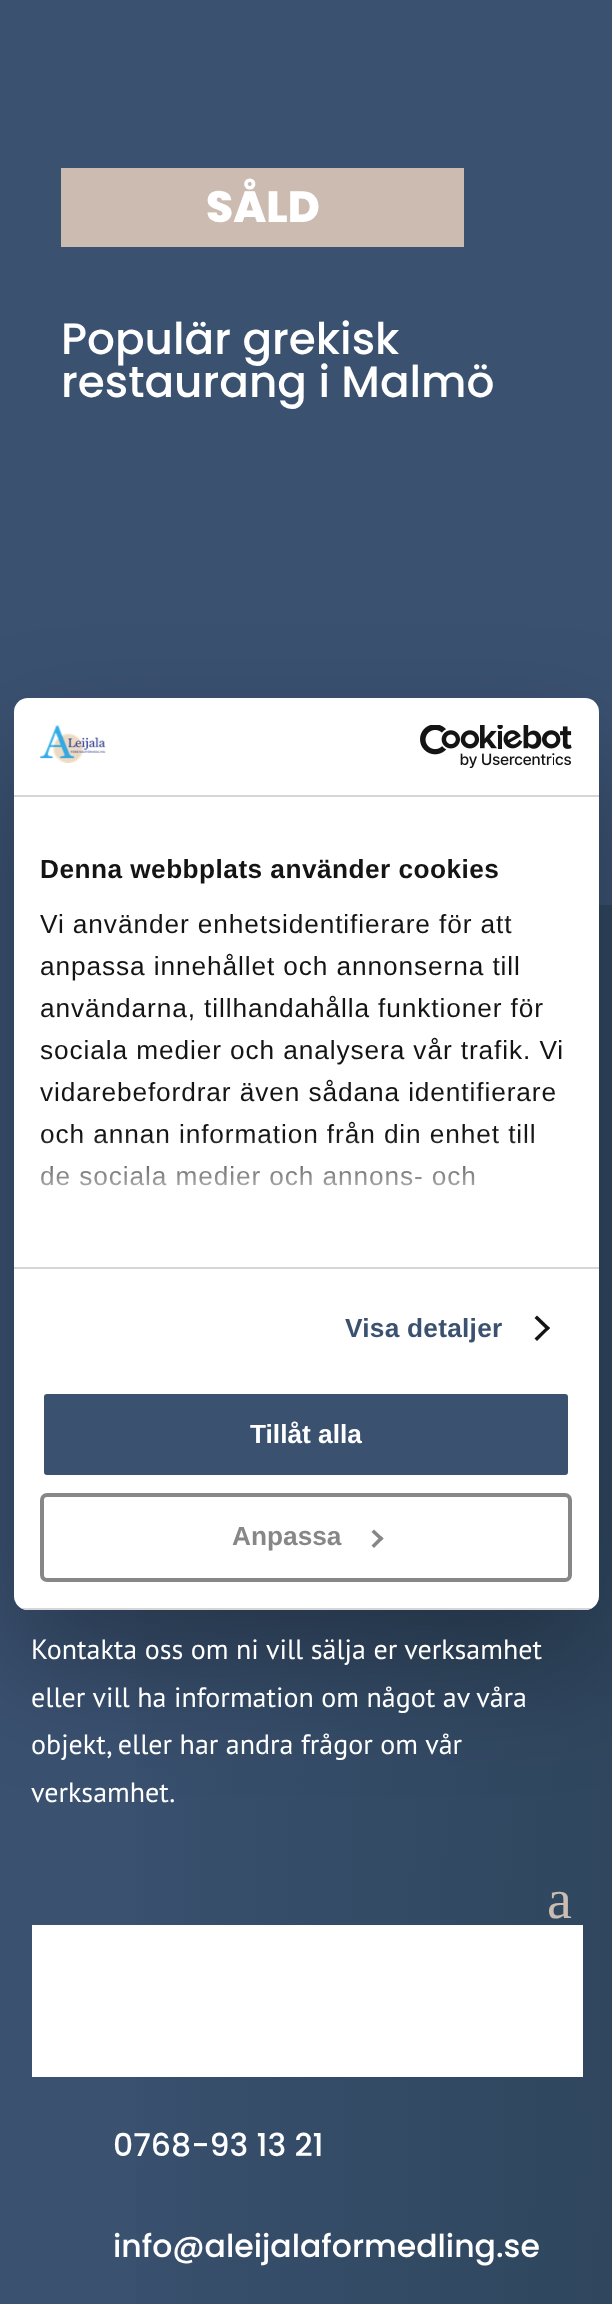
<svg xmlns="http://www.w3.org/2000/svg" xmlns:xlink="http://www.w3.org/1999/xlink" width="612" height="2304" viewBox="0 0 612 2304">
<style>
.cls-1{font:800 43.75px Poppins;fill:#ffffff}
.cls-2{font:500 43.75px Poppins;fill:#ffffff}
.cls-3{font:28px PT Sans;fill:#ffffff}
.cls-4{font:56px Liberation Serif;fill:#cbbbb0}
.cls-5{font:500 31.5px Poppins;fill:#ffffff}
.cls-6{font:bold 26.25px Liberation Sans;letter-spacing:0.45px;fill:#141414}
.cls-7{font:26.25px Liberation Sans;letter-spacing:0.9px;fill:#141414}
.cls-8{font:bold 26.25px Liberation Sans;letter-spacing:0.25px;fill:#3a5170}
.cls-9{font:bold 26.25px Liberation Sans;fill:#ffffff}
.cls-10{font:bold 26.25px Liberation Sans;fill:#878787}
</style>
<defs>
<linearGradient id="g1" gradientUnits="userSpaceOnUse" x1="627" y1="1754" x2="-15" y2="1743"><stop offset="0" stop-color="#2f465e"/><stop offset="0.87" stop-color="#3a5170"/></linearGradient>
<clipPath id="clip1"><rect x="14" y="698" width="585" height="912" rx="14"/></clipPath>
<linearGradient id="g2" gradientUnits="userSpaceOnUse" x1="295" y1="1266" x2="295" y2="1135"><stop offset="0" stop-color="#ffffff"/><stop offset="0.5" stop-color="#ffffff" stop-opacity="0.8"/><stop offset="1" stop-color="#ffffff" stop-opacity="0"/></linearGradient>
</defs>
<rect width="100%" height="100%" fill="#3a5170"/>
<rect fill="#cbbbb0" x="61" y="168" width="403" height="79"/>
<rect fill="url(#g1)" x="136" y="905" width="476" height="1399"/>
<rect fill="#ffffff" x="32" y="1925" width="551" height="152"/>
<rect fill="#000000" fill-opacity="0.3" filter="blur(59.5px)" x="14" y="754" width="585" height="912" rx="14"/>
<rect fill="#ffffff" x="14" y="698" width="585" height="912" rx="14"/>
<rect fill="#d6d6d6" x="14" y="795" width="585" height="2"/>
<image xlink:href="image0.png" x="40" y="725" width="66" height="39"/>
<image xlink:href="image1.png" x="420" y="725" width="152" height="43"/>
<rect fill="#d6d6d6" x="14" y="1267" width="585" height="2"/>
<path fill="#141414" d="M537 1315.5L550 1328L547.5 1330.5L534.5 1318Z"/>
<path fill="#141414" d="M547.5 1326L550 1328L537 1341L534.5 1338.5Z"/>
<g clip-path="url(#clip1)">
<rect fill="#d6d6d6" x="14" y="1608" width="585" height="2"/>
</g>
<rect fill="#3a5170" stroke="#ffffff" stroke-width="4" x="42" y="1392" width="528" height="85" rx="5"/>
<rect fill="none" stroke="#878787" stroke-width="4" x="42" y="1495" width="528" height="85" rx="5"/>
<path fill="#878787" d="M374 1529.5L383.5 1538.5L381 1541L371.5 1532Z"/>
<path fill="#878787" d="M381 1536L383.5 1538.5L374 1548L371.5 1545.5Z"/>
<text class="cls-1" x="206" y="222">SÅLD</text>
<text class="cls-2"><tspan x="61" y="354">Populär grekisk</tspan><tspan x="61" y="397">restaurang i Malmö</tspan></text>
<text class="cls-3"><tspan x="31" y="1659">Kontakta oss om ni vill sälja er verksamhet</tspan><tspan x="31" y="1707">eller vill ha information om något av våra</tspan><tspan x="31" y="1754">objekt, eller har andra frågor om vår</tspan><tspan x="31" y="1802">verksamhet.</tspan></text>
<text class="cls-4" x="547" y="1918">a</text>
<text class="cls-5" x="113" y="2156">0768-93 13 21</text>
<text class="cls-5" x="113" y="2257">info@aleijalaformedling.se</text>
<text class="cls-6" x="40" y="878">Denna webbplats använder cookies</text>
<text class="cls-7"><tspan x="40" y="933">Vi använder enhetsidentifierare för att</tspan><tspan x="40" y="975">anpassa innehållet och annonserna till</tspan><tspan x="40" y="1017">användarna, tillhandahålla funktioner för</tspan><tspan x="40" y="1059">sociala medier och analysera vår trafik. Vi</tspan><tspan x="40" y="1101">vidarebefordrar även sådana identifierare</tspan><tspan x="40" y="1143">och annan information från din enhet till</tspan><tspan x="40" y="1185">de sociala medier och annons- och</tspan></text>
<rect fill="url(#g2)" x="41" y="1137" width="493" height="49"/>
<text class="cls-8" x="345" y="1337">Visa detaljer</text>
<text class="cls-9" x="250" y="1443">Tillåt alla</text>
<text class="cls-10" x="232" y="1545">Anpassa</text>
</svg>
